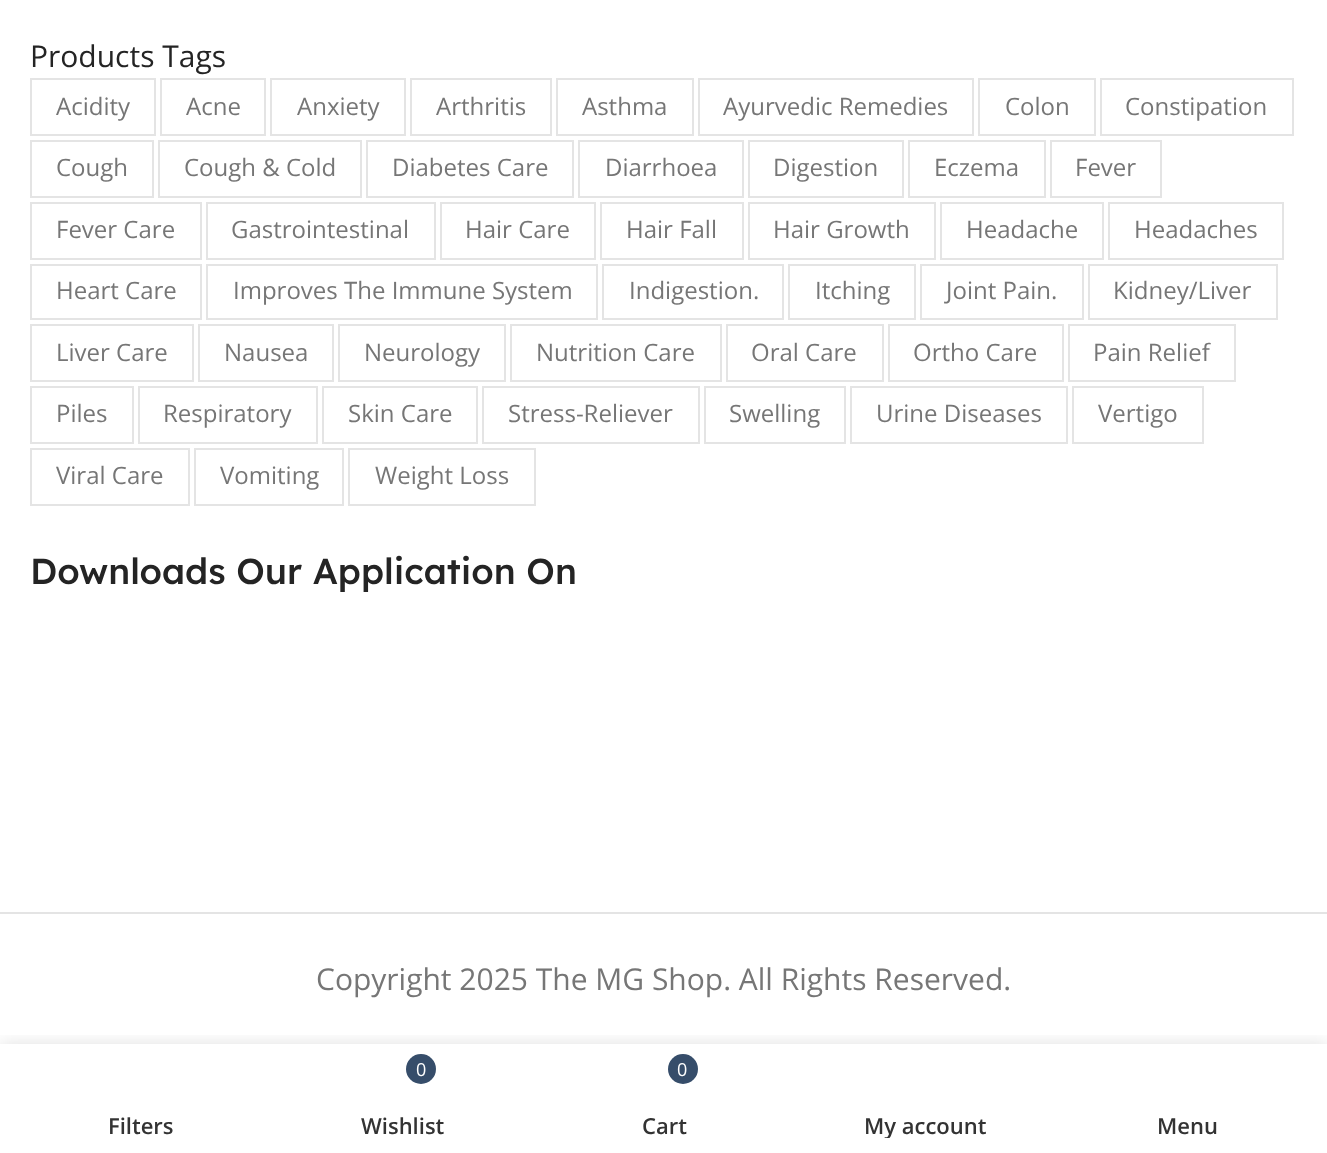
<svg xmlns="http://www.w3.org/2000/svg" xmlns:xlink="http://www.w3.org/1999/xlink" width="1327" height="1153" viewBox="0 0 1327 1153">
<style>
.cls-1{font:30px Open Sans;fill:#242424}
.cls-2{font:24px Open Sans;fill:#767676}
.cls-3{font:500 36px Lexend Deca;fill:#242424}
.cls-4{font:30px Open Sans;fill:#767676}
.cls-5{font:600 22px Open Sans;fill:#333333}
.cls-6{font:18px Open Sans;fill:#ffffff}
</style>
<defs>
<clipPath id="clip1"><rect x="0" y="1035" width="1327" height="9"/></clipPath>
<clipPath id="clip2"><rect x="814" y="1112" width="222" height="26"/></clipPath>
</defs>
<rect width="100%" height="100%" fill="#ffffff"/>
<rect fill="none" stroke="#e4e4e4" stroke-width="2" x="31" y="79" width="124" height="56"/>
<rect fill="none" stroke="#e4e4e4" stroke-width="2" x="161" y="79" width="104" height="56"/>
<rect fill="none" stroke="#e4e4e4" stroke-width="2" x="271" y="79" width="134" height="56"/>
<rect fill="none" stroke="#e4e4e4" stroke-width="2" x="411" y="79" width="140" height="56"/>
<rect fill="none" stroke="#e4e4e4" stroke-width="2" x="557" y="79" width="136" height="56"/>
<rect fill="none" stroke="#e4e4e4" stroke-width="2" x="699" y="79" width="274" height="56"/>
<rect fill="none" stroke="#e4e4e4" stroke-width="2" x="979" y="79" width="116" height="56"/>
<rect fill="none" stroke="#e4e4e4" stroke-width="2" x="1101" y="79" width="192" height="56"/>
<rect fill="none" stroke="#e4e4e4" stroke-width="2" x="31" y="141" width="122" height="56"/>
<rect fill="none" stroke="#e4e4e4" stroke-width="2" x="159" y="141" width="202" height="56"/>
<rect fill="none" stroke="#e4e4e4" stroke-width="2" x="367" y="141" width="206" height="56"/>
<rect fill="none" stroke="#e4e4e4" stroke-width="2" x="579" y="141" width="164" height="56"/>
<rect fill="none" stroke="#e4e4e4" stroke-width="2" x="749" y="141" width="154" height="56"/>
<rect fill="none" stroke="#e4e4e4" stroke-width="2" x="909" y="141" width="136" height="56"/>
<rect fill="none" stroke="#e4e4e4" stroke-width="2" x="1051" y="141" width="110" height="56"/>
<rect fill="none" stroke="#e4e4e4" stroke-width="2" x="31" y="203" width="170" height="56"/>
<rect fill="none" stroke="#e4e4e4" stroke-width="2" x="207" y="203" width="228" height="56"/>
<rect fill="none" stroke="#e4e4e4" stroke-width="2" x="441" y="203" width="154" height="56"/>
<rect fill="none" stroke="#e4e4e4" stroke-width="2" x="601" y="203" width="142" height="56"/>
<rect fill="none" stroke="#e4e4e4" stroke-width="2" x="749" y="203" width="186" height="56"/>
<rect fill="none" stroke="#e4e4e4" stroke-width="2" x="941" y="203" width="162" height="56"/>
<rect fill="none" stroke="#e4e4e4" stroke-width="2" x="1109" y="203" width="174" height="56"/>
<rect fill="none" stroke="#e4e4e4" stroke-width="2" x="31" y="265" width="170" height="54"/>
<rect fill="none" stroke="#e4e4e4" stroke-width="2" x="207" y="265" width="390" height="54"/>
<rect fill="none" stroke="#e4e4e4" stroke-width="2" x="603" y="265" width="180" height="54"/>
<rect fill="none" stroke="#e4e4e4" stroke-width="2" x="789" y="265" width="126" height="54"/>
<rect fill="none" stroke="#e4e4e4" stroke-width="2" x="921" y="265" width="162" height="54"/>
<rect fill="none" stroke="#e4e4e4" stroke-width="2" x="1089" y="265" width="188" height="54"/>
<rect fill="none" stroke="#e4e4e4" stroke-width="2" x="31" y="325" width="162" height="56"/>
<rect fill="none" stroke="#e4e4e4" stroke-width="2" x="199" y="325" width="134" height="56"/>
<rect fill="none" stroke="#e4e4e4" stroke-width="2" x="339" y="325" width="166" height="56"/>
<rect fill="none" stroke="#e4e4e4" stroke-width="2" x="511" y="325" width="210" height="56"/>
<rect fill="none" stroke="#e4e4e4" stroke-width="2" x="727" y="325" width="156" height="56"/>
<rect fill="none" stroke="#e4e4e4" stroke-width="2" x="889" y="325" width="174" height="56"/>
<rect fill="none" stroke="#e4e4e4" stroke-width="2" x="1069" y="325" width="166" height="56"/>
<rect fill="none" stroke="#e4e4e4" stroke-width="2" x="31" y="387" width="102" height="56"/>
<rect fill="none" stroke="#e4e4e4" stroke-width="2" x="139" y="387" width="178" height="56"/>
<rect fill="none" stroke="#e4e4e4" stroke-width="2" x="323" y="387" width="154" height="56"/>
<rect fill="none" stroke="#e4e4e4" stroke-width="2" x="483" y="387" width="216" height="56"/>
<rect fill="none" stroke="#e4e4e4" stroke-width="2" x="705" y="387" width="140" height="56"/>
<rect fill="none" stroke="#e4e4e4" stroke-width="2" x="851" y="387" width="216" height="56"/>
<rect fill="none" stroke="#e4e4e4" stroke-width="2" x="1073" y="387" width="130" height="56"/>
<rect fill="none" stroke="#e4e4e4" stroke-width="2" x="31" y="449" width="158" height="56"/>
<rect fill="none" stroke="#e4e4e4" stroke-width="2" x="195" y="449" width="148" height="56"/>
<rect fill="none" stroke="#e4e4e4" stroke-width="2" x="349" y="449" width="186" height="56"/>
<rect fill="#e4e4e4" x="0" y="912" width="1327" height="2"/>
<g clip-path="url(#clip1)">
<rect fill="#000000" fill-opacity="0.12" filter="blur(9px)" x="0" y="1044" width="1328" height="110"/>
</g>
<circle fill="#364d6a" cx="421" cy="1069" r="15"/>
<circle fill="#364d6a" cx="683" cy="1069" r="15"/>
<text class="cls-1" x="30" y="67">Products Tags</text>
<text class="cls-2" x="56" y="115">Acidity</text>
<text class="cls-2" x="186" y="115">Acne</text>
<text class="cls-2" x="297" y="115">Anxiety</text>
<text class="cls-2" x="436" y="115">Arthritis</text>
<text class="cls-2" x="582" y="115">Asthma</text>
<text class="cls-2" x="723" y="115">Ayurvedic Remedies</text>
<text class="cls-2" x="1005" y="115">Colon</text>
<text class="cls-2" x="1125" y="115">Constipation</text>
<text class="cls-2" x="56" y="176">Cough</text>
<text class="cls-2" x="184" y="176">Cough &amp; Cold</text>
<text class="cls-2" x="392" y="176">Diabetes Care</text>
<text class="cls-2" x="605" y="176">Diarrhoea</text>
<text class="cls-2" x="773" y="176">Digestion</text>
<text class="cls-2" x="934" y="176">Eczema</text>
<text class="cls-2" x="1075" y="176">Fever</text>
<text class="cls-2" x="56" y="238">Fever Care</text>
<text class="cls-2" x="231" y="238">Gastrointestinal</text>
<text class="cls-2" x="465" y="238">Hair Care</text>
<text class="cls-2" x="626" y="238">Hair Fall</text>
<text class="cls-2" x="773" y="238">Hair Growth</text>
<text class="cls-2" x="966" y="238">Headache</text>
<text class="cls-2" x="1134" y="238">Headaches</text>
<text class="cls-2" x="56" y="299">Heart Care</text>
<text class="cls-2" x="233" y="299">Improves The Immune System</text>
<text class="cls-2" x="629" y="299">Indigestion.</text>
<text class="cls-2" x="815" y="299">Itching</text>
<text class="cls-2" x="946" y="299">Joint Pain.</text>
<text class="cls-2" x="1113" y="299">Kidney/Liver</text>
<text class="cls-2" x="56" y="361">Liver Care</text>
<text class="cls-2" x="224" y="361">Nausea</text>
<text class="cls-2" x="364" y="361">Neurology</text>
<text class="cls-2" x="536" y="361">Nutrition Care</text>
<text class="cls-2" x="751" y="361">Oral Care</text>
<text class="cls-2" x="913" y="361">Ortho Care</text>
<text class="cls-2" x="1093" y="361">Pain Relief</text>
<text class="cls-2" x="56" y="422">Piles</text>
<text class="cls-2" x="163" y="422">Respiratory</text>
<text class="cls-2" x="348" y="422">Skin Care</text>
<text class="cls-2" x="508" y="422">Stress-Reliever</text>
<text class="cls-2" x="729" y="422">Swelling</text>
<text class="cls-2" x="876" y="422">Urine Diseases</text>
<text class="cls-2" x="1098" y="422">Vertigo</text>
<text class="cls-2" x="56" y="484">Viral Care</text>
<text class="cls-2" x="220" y="484">Vomiting</text>
<text class="cls-2" x="375" y="484">Weight Loss</text>
<text class="cls-3" x="30" y="584">Downloads Our Application On</text>
<text class="cls-4" x="316" y="990">Copyright 2025 The MG Shop. All Rights Reserved.</text>
<text class="cls-5" x="108" y="1134">Filters</text>
<text class="cls-6" x="416" y="1076">0</text>
<text class="cls-5" x="361" y="1134">Wishlist</text>
<text class="cls-6" x="677" y="1076">0</text>
<text class="cls-5" x="642" y="1134">Cart</text>
<g clip-path="url(#clip2)">
<text class="cls-5" x="864" y="1134">My account</text>
</g>
<text class="cls-5" x="1157" y="1134">Menu</text>
</svg>
